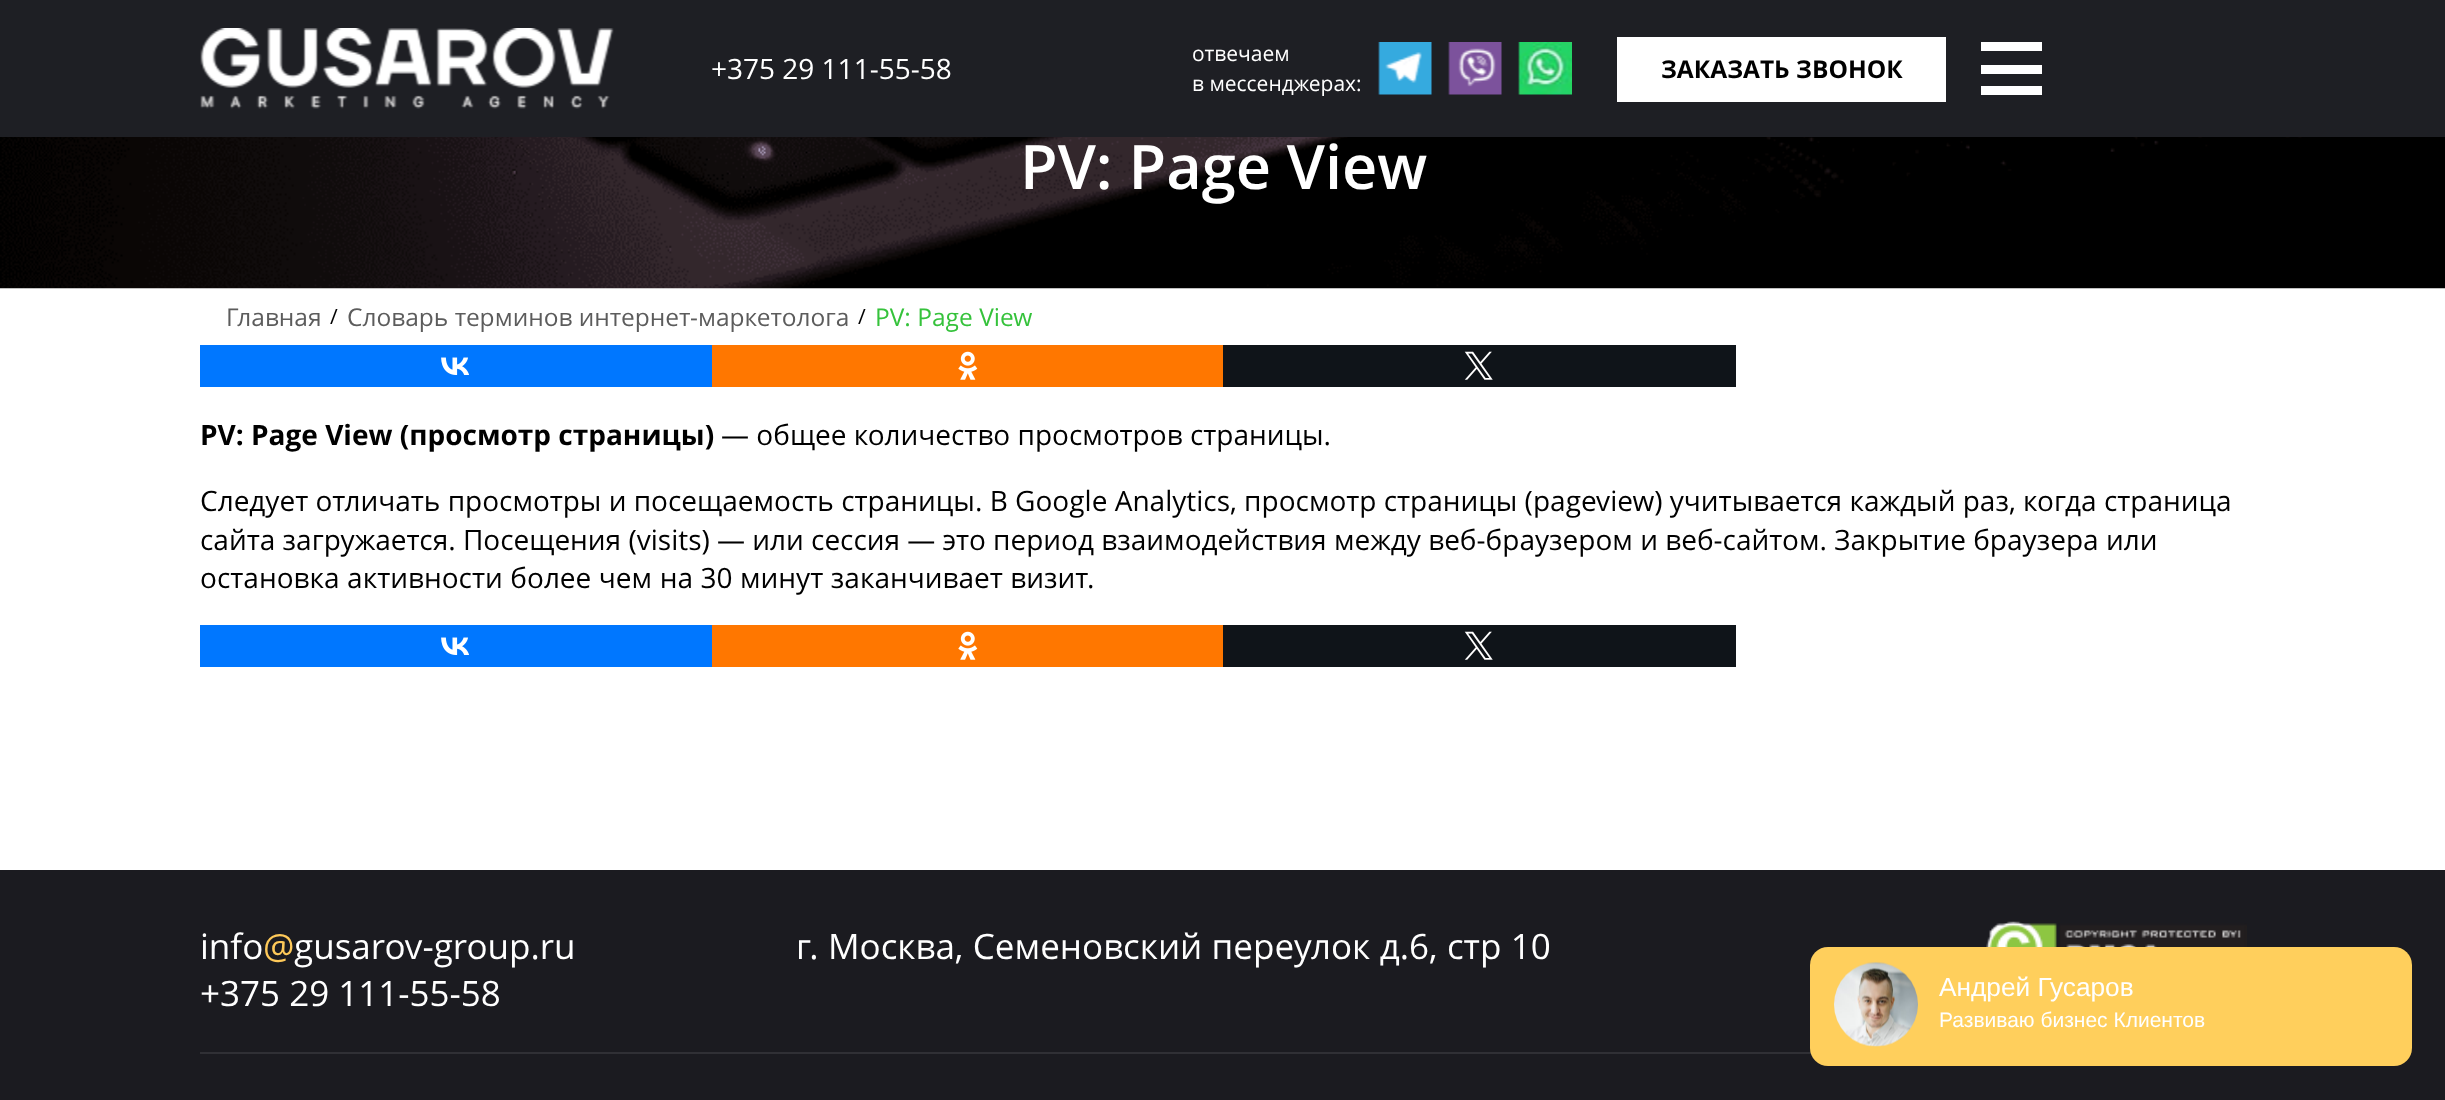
<svg xmlns="http://www.w3.org/2000/svg" xmlns:xlink="http://www.w3.org/1999/xlink" width="2445" height="1100" viewBox="0 0 2445 1100">
<style>
.cls-1{font:28px Open Sans;fill:#ffffff}
.cls-2{font:21px Open Sans;fill:#ffffff}
.cls-3{font:bold 24.5px Open Sans;fill:#000000}
.cls-4{font:600 61.25px Open Sans;fill:#ffffff}
.cls-5{font:24.5px Open Sans;fill:#5c5c5c}
.cls-6{font:21px Open Sans;fill:#000000}
.cls-7{font:24.5px Open Sans;fill:#35c23b}
.cls-8{font:bold 28px Open Sans;fill:#000000}
.cls-9{font:28px Open Sans;fill:#000000}
.cls-10{font:35px Open Sans;fill:#ffffff}
.cls-11{font:35px Open Sans;fill:#fec959}
.cls-12{font:26.25px Liberation Sans;fill:#ffffff}
.cls-13{font:21px Liberation Sans;fill:#ffffff}
</style>
<rect width="100%" height="100%" fill="#ffffff"/>
<rect fill="#1e1f24" x="0" y="0" width="2445" height="137"/>
<image xlink:href="image0.png" x="200" y="28" width="414" height="81"/>
<image xlink:href="image1.png" x="1378" y="42" width="54" height="53"/>
<image xlink:href="image2.png" x="1448" y="42" width="54" height="53"/>
<image xlink:href="image3.png" x="1518" y="42" width="54" height="53"/>
<rect fill="#ffffff" x="1617" y="37" width="329" height="65"/>
<rect fill="#ffffff" x="1981" y="42" width="61" height="9"/>
<rect fill="#ffffff" x="1981" y="65" width="61" height="9"/>
<rect fill="#ffffff" x="1981" y="86" width="61" height="9"/>
<image xlink:href="image4.png" x="0" y="137" width="2445" height="152"/>
<rect fill="#0077ff" x="200" y="345" width="512" height="42"/>
<image xlink:href="image5.png" x="441" y="357" width="28" height="18"/>
<rect fill="#ff7700" x="712" y="345" width="511" height="42"/>
<image xlink:href="image6.png" x="958" y="351" width="20" height="29"/>
<rect fill="#0f1419" x="1223" y="345" width="513" height="42"/>
<image xlink:href="image7.png" x="1464" y="351" width="29" height="29"/>
<rect fill="#0077ff" x="200" y="625" width="512" height="42"/>
<image xlink:href="image5.png" x="441" y="637" width="28" height="18"/>
<rect fill="#ff7700" x="712" y="625" width="511" height="42"/>
<image xlink:href="image6.png" x="958" y="631" width="20" height="29"/>
<rect fill="#0f1419" x="1223" y="625" width="513" height="42"/>
<image xlink:href="image7.png" x="1464" y="631" width="29" height="29"/>
<rect fill="#1b1b20" x="0" y="870" width="2445" height="230"/>
<rect fill="#303035" x="200" y="1052" width="1611" height="2"/>
<image xlink:href="image8.png" x="1986" y="921" width="261" height="26"/>
<rect fill="#ffcf5c" x="1810" y="947" width="602" height="119" rx="18"/>
<image xlink:href="image9.png" x="1834" y="962" width="84" height="85"/>
<text class="cls-1" x="711" y="79">+375 29 111-55-58</text>
<text class="cls-2"><tspan x="1192" y="61">отвечаем</tspan><tspan x="1192" y="91">в мессенджерах:</tspan></text>
<text class="cls-3" x="1661" y="78">ЗАКАЗАТЬ ЗВОНОК</text>
<text class="cls-4" x="1020" y="189">PV: Page View</text>
<text class="cls-5" x="226" y="326">Главная</text>
<text class="cls-6" x="330" y="324">/</text>
<text class="cls-5" x="347" y="326">Словарь терминов интернет-маркетолога</text>
<text class="cls-6" x="858" y="324">/</text>
<text class="cls-7" x="875" y="326">PV: Page View</text>
<text class="cls-8" x="200" y="445">PV: Page View (просмотр страницы)</text>
<text class="cls-9" x="721" y="445">— общее количество просмотров страницы.</text>
<text class="cls-9"><tspan x="200" y="511">Следует отличать просмотры и посещаемость страницы. В Google Analytics, просмотр страницы (pageview) учитывается каждый раз, когда страница</tspan><tspan x="200" y="550">сайта загружается. Посещения (visits) — или сессия — это период взаимодействия между веб-браузером и веб-сайтом. Закрытие браузера или</tspan><tspan x="200" y="588" word-spacing="0.25">остановка активности более чем на 30 минут заканчивает визит.</tspan></text>
<text class="cls-10" x="200" y="959">info</text>
<text class="cls-11" x="263" y="959">@</text>
<text class="cls-10" x="294" y="959">gusarov-group.ru</text>
<text class="cls-10" x="796" y="959" word-spacing="0.25">г. Москва, Семеновский переулок д.6, стр 10</text>
<text class="cls-10" x="200" y="1006">+375 29 111-55-58</text>
<text class="cls-12" x="1939" y="996">Андрей Гусаров</text>
<text class="cls-13" x="1939" y="1027">Развиваю бизнес Клиентов</text>
</svg>
